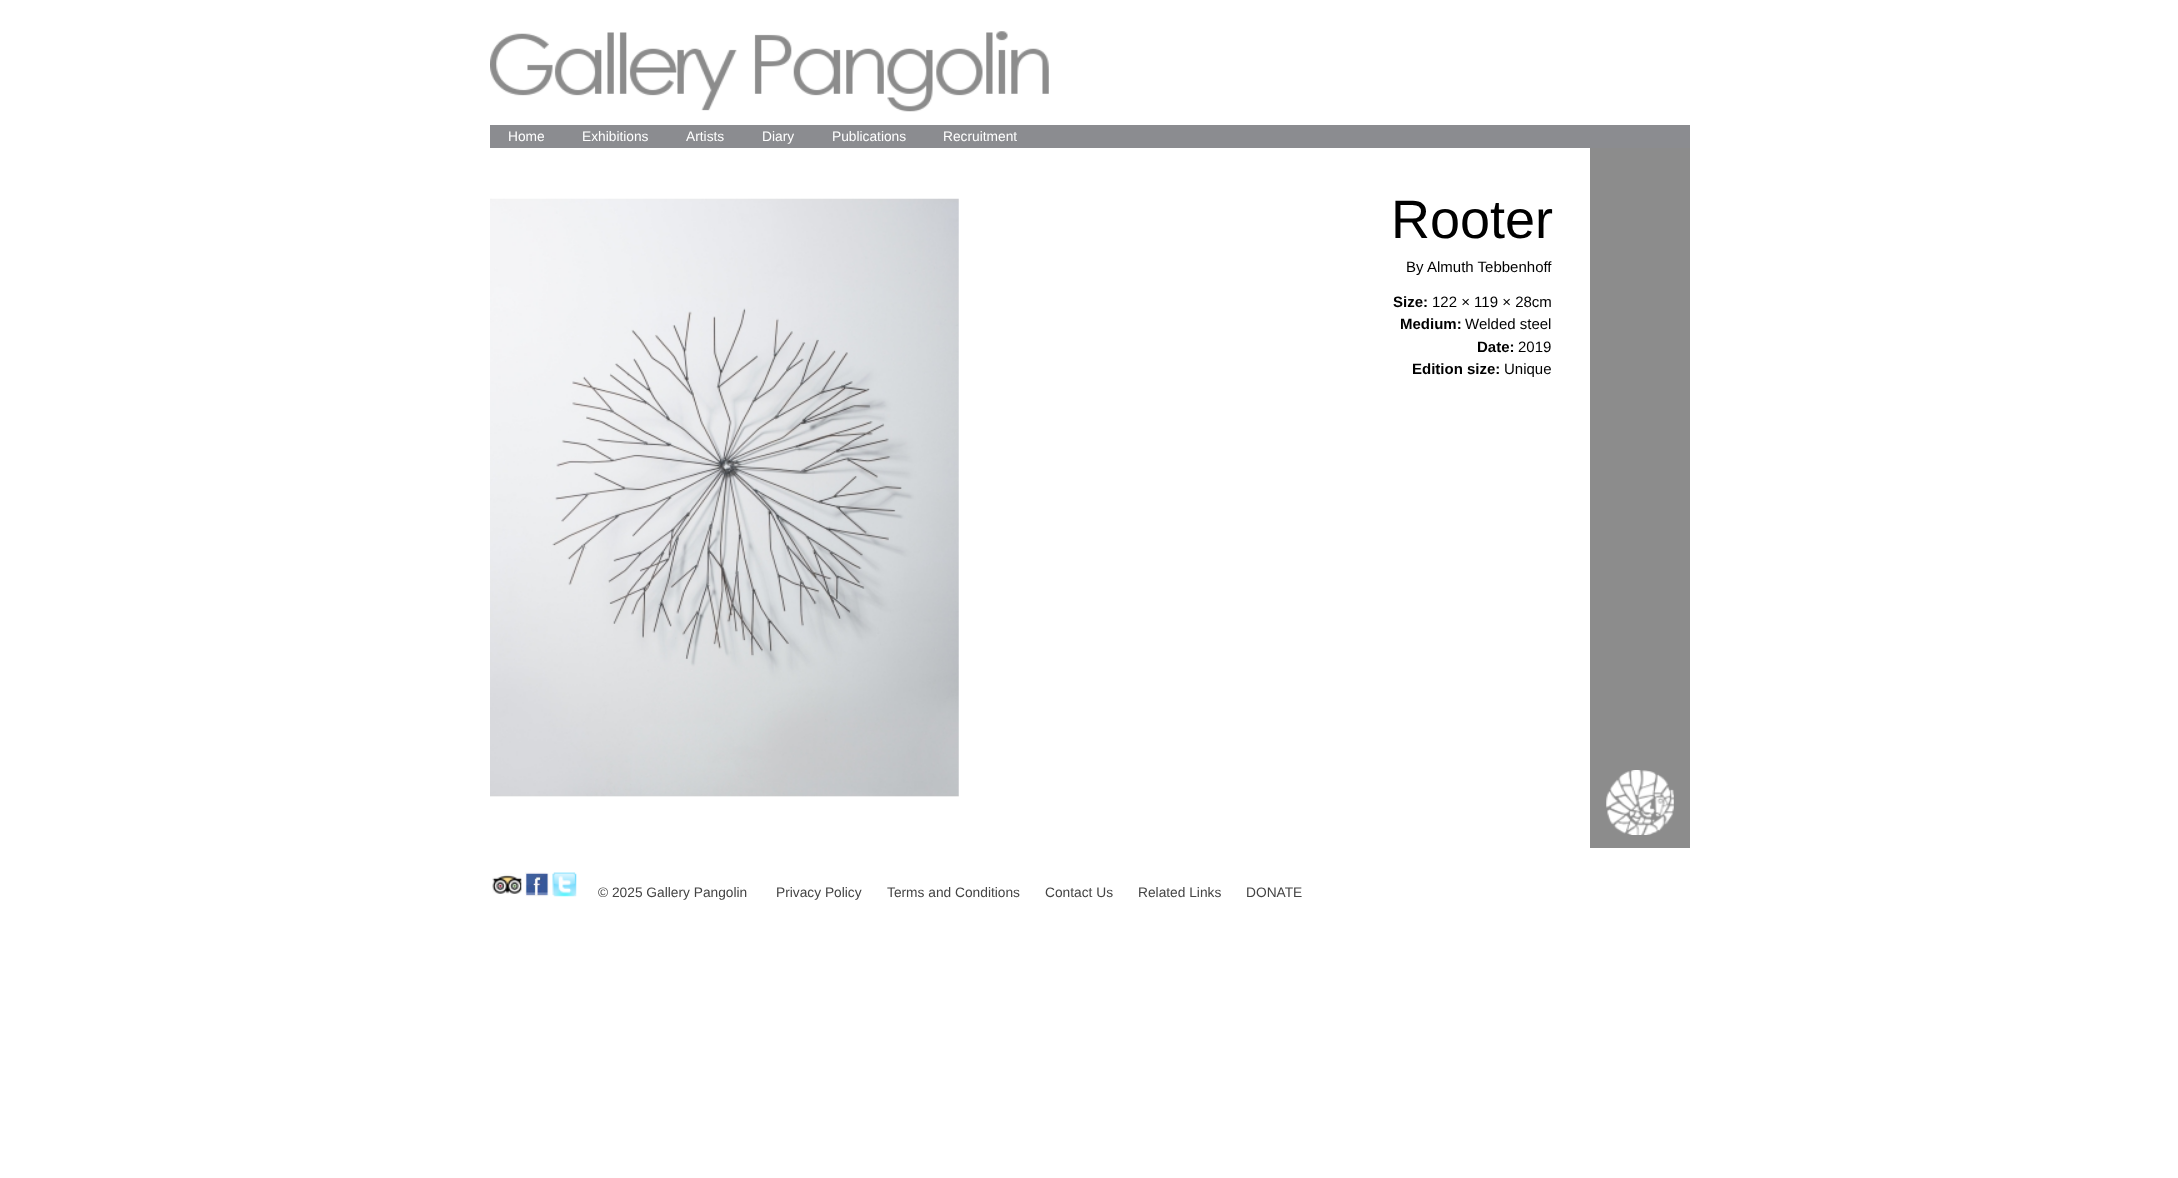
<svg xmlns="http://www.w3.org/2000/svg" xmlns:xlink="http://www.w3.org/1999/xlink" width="2178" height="1178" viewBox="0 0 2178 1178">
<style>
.cls-1{font:13.75px Liberation Sans;fill:#ffffff}
.cls-2{font:54px Liberation Sans;fill:#000000}
.cls-3{font:15px Liberation Sans;fill:#000000}
.cls-4{font:bold 15px Liberation Sans;fill:#000000}
.cls-5{font:13.75px Liberation Sans;fill:#444444}
</style>
<rect width="100%" height="100%" fill="#ffffff"/>
<image xlink:href="image0.png" x="490" y="31" width="559" height="81"/>
<rect fill="#8b8c90" x="490" y="125" width="1200" height="23"/>
<rect fill="#8c8c8c" x="1590" y="148" width="100" height="700"/>
<image xlink:href="image1.png" x="490" y="198" width="469" height="599"/>
<image xlink:href="image2.png" x="1606" y="770" width="68" height="65"/>
<image xlink:href="image3.png" x="492" y="873" width="30" height="21"/>
<image xlink:href="image4.png" x="525" y="872" width="24" height="25"/>
<image xlink:href="image5.png" x="552" y="872" width="25" height="25"/>
<text class="cls-1" x="508" y="141">Home</text>
<text class="cls-1" x="582" y="141">Exhibitions</text>
<text class="cls-1" x="686" y="141">Artists</text>
<text class="cls-1" x="762" y="141">Diary</text>
<text class="cls-1" x="832" y="141">Publications</text>
<text class="cls-1" x="943" y="141">Recruitment</text>
<text class="cls-2" x="1391" y="238">Rooter</text>
<text class="cls-3" x="1406" y="272">By</text>
<text class="cls-3" x="1427" y="272">Almuth Tebbenhoff</text>
<text class="cls-4" x="1393" y="307">Size:</text>
<text class="cls-3" x="1432" y="307">122 × 119 × 28cm</text>
<text class="cls-4" x="1400" y="329">Medium:</text>
<text class="cls-3" x="1465" y="329">Welded steel</text>
<text class="cls-4" x="1477" y="352">Date:</text>
<text class="cls-3" x="1518" y="352">2019</text>
<text class="cls-4" x="1412" y="374">Edition size:</text>
<text class="cls-3" x="1504" y="374">Unique</text>
<text class="cls-5" x="598" y="897">© 2025 Gallery Pangolin</text>
<text class="cls-5" x="776" y="897">Privacy Policy</text>
<text class="cls-5" x="887" y="897">Terms and Conditions</text>
<text class="cls-5" x="1045" y="897">Contact Us</text>
<text class="cls-5" x="1138" y="897">Related Links</text>
<text class="cls-5" x="1246" y="897">DONATE</text>
</svg>
